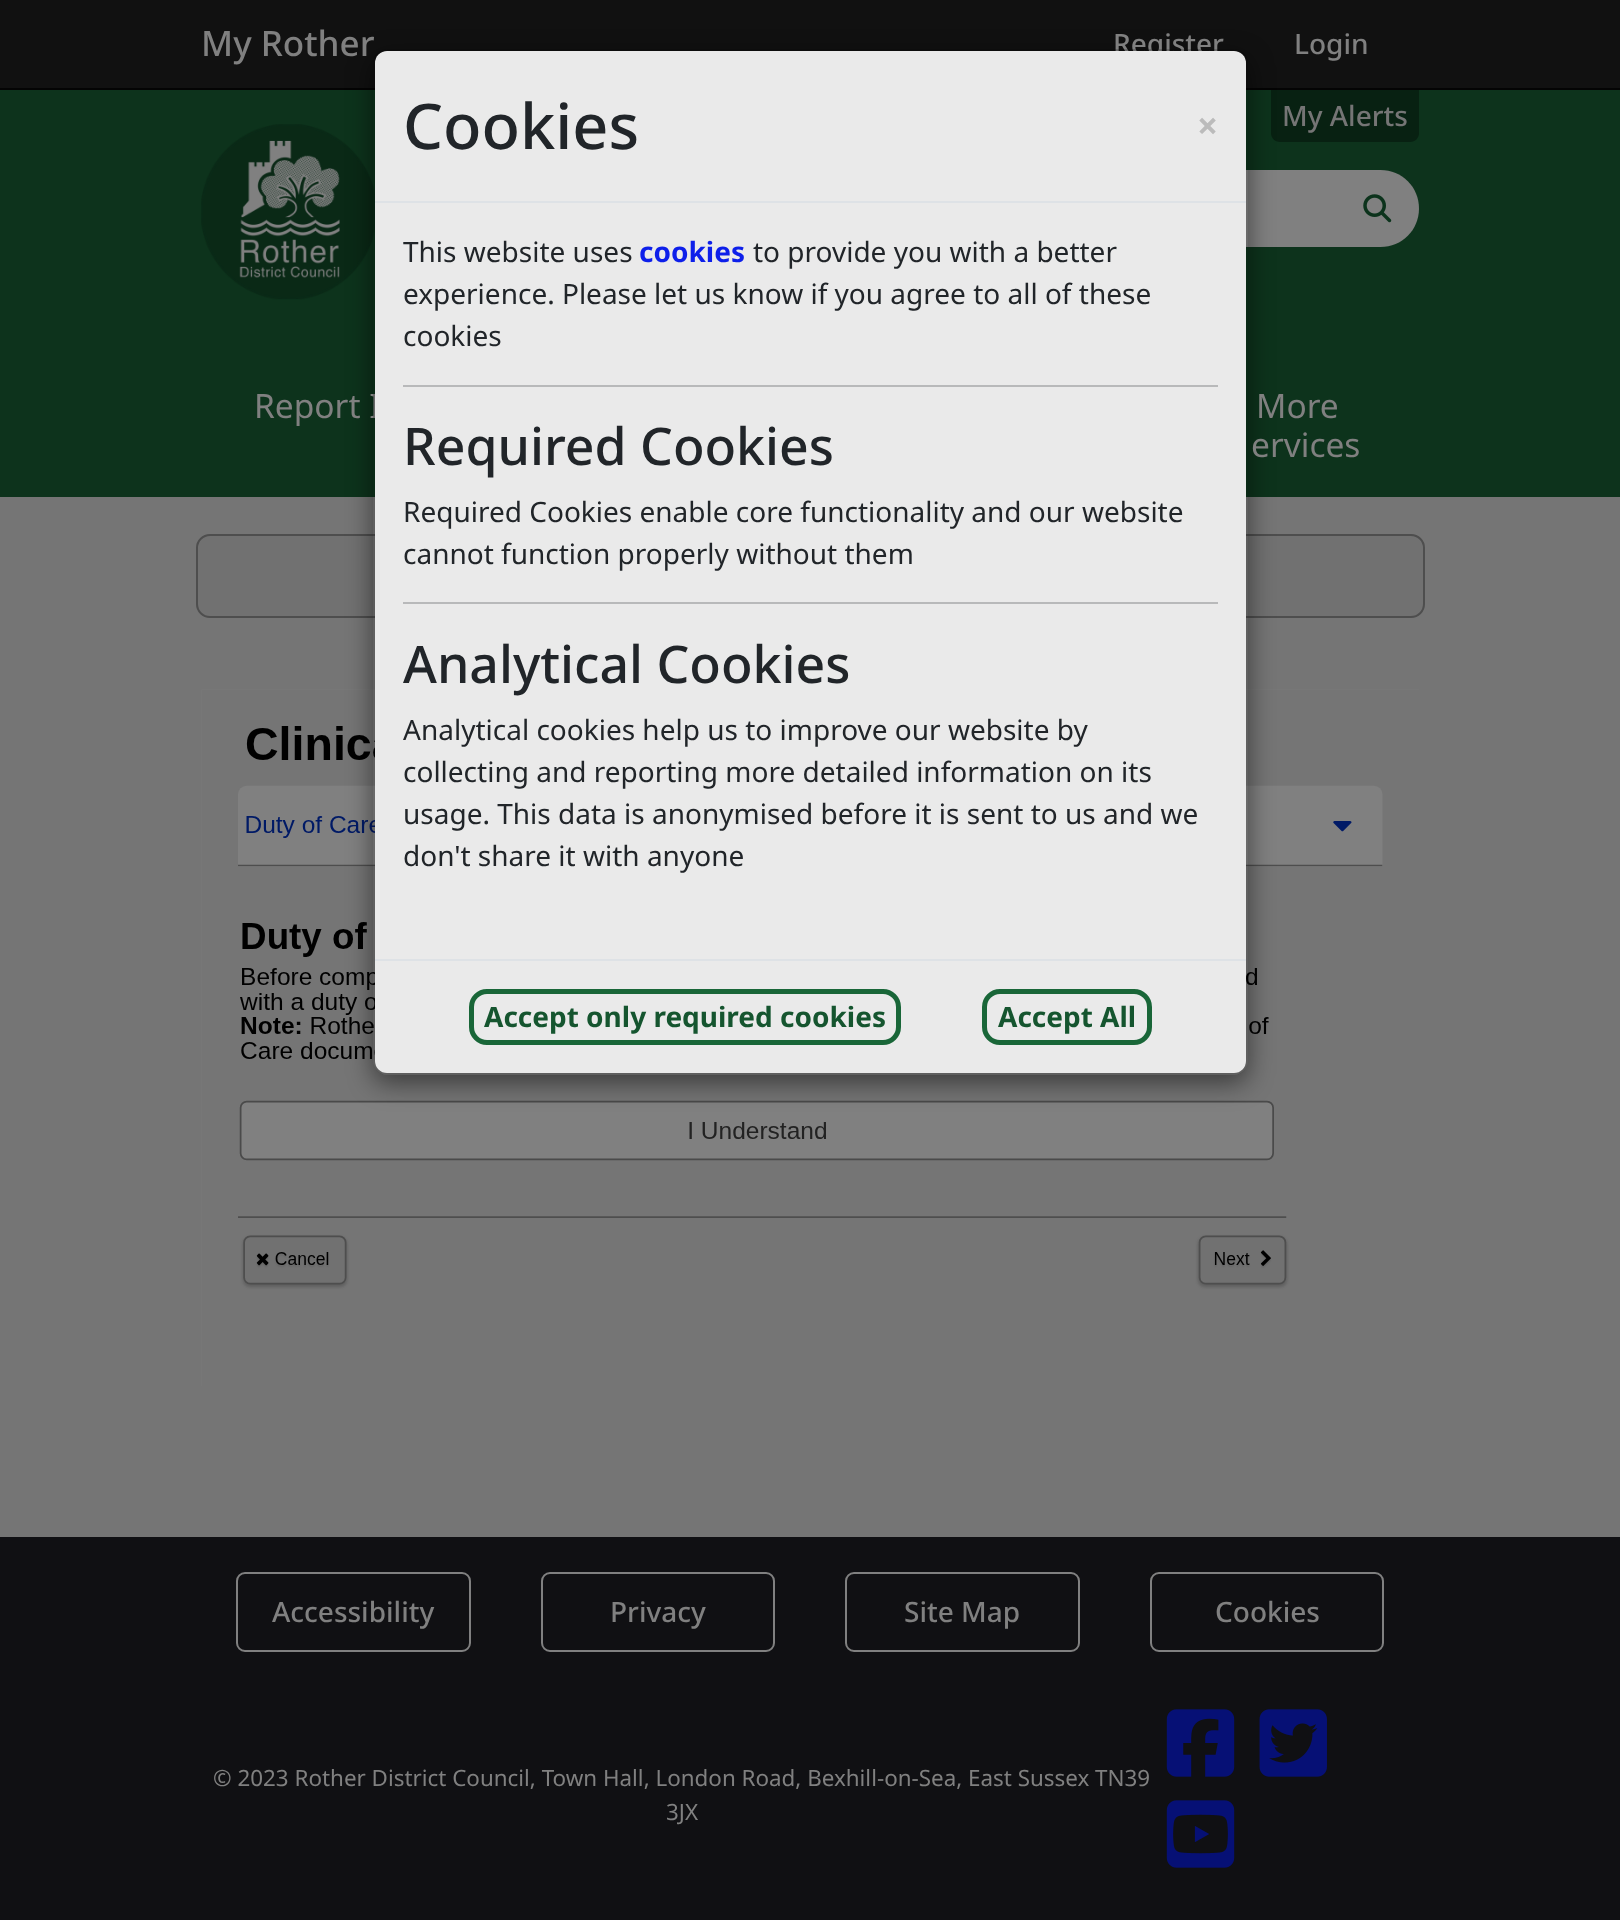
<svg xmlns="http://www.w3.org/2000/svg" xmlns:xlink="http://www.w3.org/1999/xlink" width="1620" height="1920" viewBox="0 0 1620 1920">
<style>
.cls-1{font:500 35px Noto Sans;fill:#808080}
.cls-2{font:500 28px Noto Sans;fill:#808080}
.cls-3{font:500 28px Noto Sans;fill:#757575}
.cls-4{font:33.5px Noto Sans;fill:#808080}
.cls-5{font:28px Noto Sans;fill:#212529}
.cls-6{font:500 51.75px 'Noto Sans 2';fill:#212529}
.cls-7{font:bold 28px Noto Sans;fill:#0d1fea}
.cls-8{font:bold 37px Noto Sans;fill:#bbbbbb}
.cls-9{font:bold 28px Noto Sans;fill:#15552f}
.cls-10{font:500 63px 'Noto Sans 2';fill:#212529}
.cls-11{font:22.4px Noto Sans;fill:#808080}
</style>
<defs>
<clipPath id="clip1"><path d="M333 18H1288V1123H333ZM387 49H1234C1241.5 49 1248 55.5 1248 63V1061C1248 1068.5 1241.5 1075 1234 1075H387C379.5 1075 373 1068.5 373 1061V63C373 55.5 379.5 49 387 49Z" clip-rule="evenodd"/></clipPath>
</defs>
<rect width="100%" height="100%" fill="#757575"/>
<rect fill="#111111" x="0" y="0" width="1620" height="88"/>
<rect fill="#0d331c" x="0" y="90" width="1620" height="407"/>
<path fill="#082112" d="M1271 89H1419V133C1419 138 1415 142 1410 142H1280C1275 142 1271 138 1271 133Z"/>
<rect fill="#040404" x="0" y="88" width="1620" height="2"/>
<rect fill="#808080" x="1246" y="170" width="96" height="77"/>
<image xlink:href="image1.png" x="201" y="124" width="174" height="176"/>
<rect fill="#717171" stroke="#4e4e4e" stroke-width="2" x="197" y="535" width="588" height="82" rx="13"/>
<rect fill="#717171" stroke="#4e4e4e" stroke-width="2" x="799" y="535" width="625" height="82" rx="13"/>
<image xlink:href="image2.png" x="201" y="689" width="1218" height="697"/>
<g clip-path="url(#clip1)">
<rect fill="#000000" fill-opacity="0.5" filter="blur(13px)" x="373" y="58" width="875" height="1025" rx="14"/>
</g>
<path fill="#808080" d="M1342 170H1380.5C1402 170 1419 187 1419 208.5C1419 230 1402 247 1380.5 247H1342Z"/>
<image xlink:href="image0.png" x="1363" y="194" width="29" height="29"/>
<rect fill="#101013" x="0" y="1537" width="1620" height="383"/>
<rect fill="none" stroke="#808080" stroke-width="2" x="237" y="1573" width="233" height="78" rx="8"/>
<rect fill="none" stroke="#808080" stroke-width="2" x="542" y="1573" width="232" height="78" rx="8"/>
<rect fill="none" stroke="#808080" stroke-width="2" x="846" y="1573" width="233" height="78" rx="8"/>
<rect fill="none" stroke="#808080" stroke-width="2" x="1151" y="1573" width="232" height="78" rx="8"/>
<image xlink:href="image3.png" x="1166" y="1709" width="69" height="68"/>
<image xlink:href="image4.png" x="1259" y="1709" width="68" height="68"/>
<image xlink:href="image5.png" x="1166" y="1800" width="69" height="68"/>
<text class="cls-1" x="201" y="56">My Rother</text>
<text class="cls-2" x="1113" y="54">Register</text>
<text class="cls-2" x="1294" y="54">Login</text>
<text class="cls-3" x="1282" y="126">My Alerts</text>
<text class="cls-4" x="254" y="418">Report I</text>
<rect fill="#eaeaea" x="375" y="51" width="871" height="1022" rx="12"/>
<rect fill="none" stroke="#000000" stroke-opacity="0.18" stroke-width="2" x="374" y="50" width="873" height="1024" rx="13"/>
<rect fill="#b8b9ba" x="403" y="602" width="815" height="2"/>
<rect fill="#b8b9ba" x="403" y="385" width="815" height="2"/>
<text class="cls-5" x="403" y="866">don't share it with anyone</text>
<text class="cls-5" x="403" y="824">usage. This data is anonymised before it is sent to us and we</text>
<text class="cls-5" x="403" y="782">collecting and reporting more detailed information on its</text>
<text class="cls-5" x="403" y="740">Analytical cookies help us to improve our website by</text>
<text class="cls-6" x="403" y="683">Analytical Cookies</text>
<text class="cls-5" x="403" y="564">cannot function properly without them</text>
<text class="cls-5" x="403" y="522">Required Cookies enable core functionality and our website</text>
<text class="cls-6" x="403" y="465">Required Cookies</text>
<text class="cls-5" x="403" y="346">cookies</text>
<text class="cls-5" x="403" y="304">experience. Please let us know if you agree to all of these</text>
<text class="cls-5" x="753" y="262">to provide you with a better</text>
<text class="cls-7" x="639" y="262">cookies</text>
<text class="cls-5" x="403" y="262">This website uses</text>
<text class="cls-8" x="1197" y="139">×</text>
<rect fill="none" stroke="#196638" stroke-width="5" x="984.5" y="991.5" width="165" height="51" rx="15.5"/>
<text class="cls-9" x="998" y="1027">Accept All</text>
<rect fill="none" stroke="#196638" stroke-width="5" x="471.5" y="991.5" width="427" height="51" rx="15.5"/>
<text class="cls-9" x="484" y="1027">Accept only required cookies</text>
<rect fill="#dee2e6" x="375" y="959" width="871" height="2"/>
<text class="cls-10" x="403" y="149">Cookies</text>
<rect fill="#dee2e6" x="375" y="201" width="871" height="2"/>
<text class="cls-4" x="1256" y="418">More</text>
<text class="cls-4" x="1251" y="457">ervices</text>
<text class="cls-2" x="272" y="1622">Accessibility</text>
<text class="cls-2" x="610" y="1622">Privacy</text>
<text class="cls-2" x="904" y="1622">Site Map</text>
<text class="cls-2" x="1215" y="1622">Cookies</text>
<text class="cls-11" x="213" y="1786">© 2023 Rother District Council, Town Hall, London Road, Bexhill-on-Sea, East Sussex TN39</text>
<text class="cls-11" x="666" y="1820">3JX</text>
</svg>
